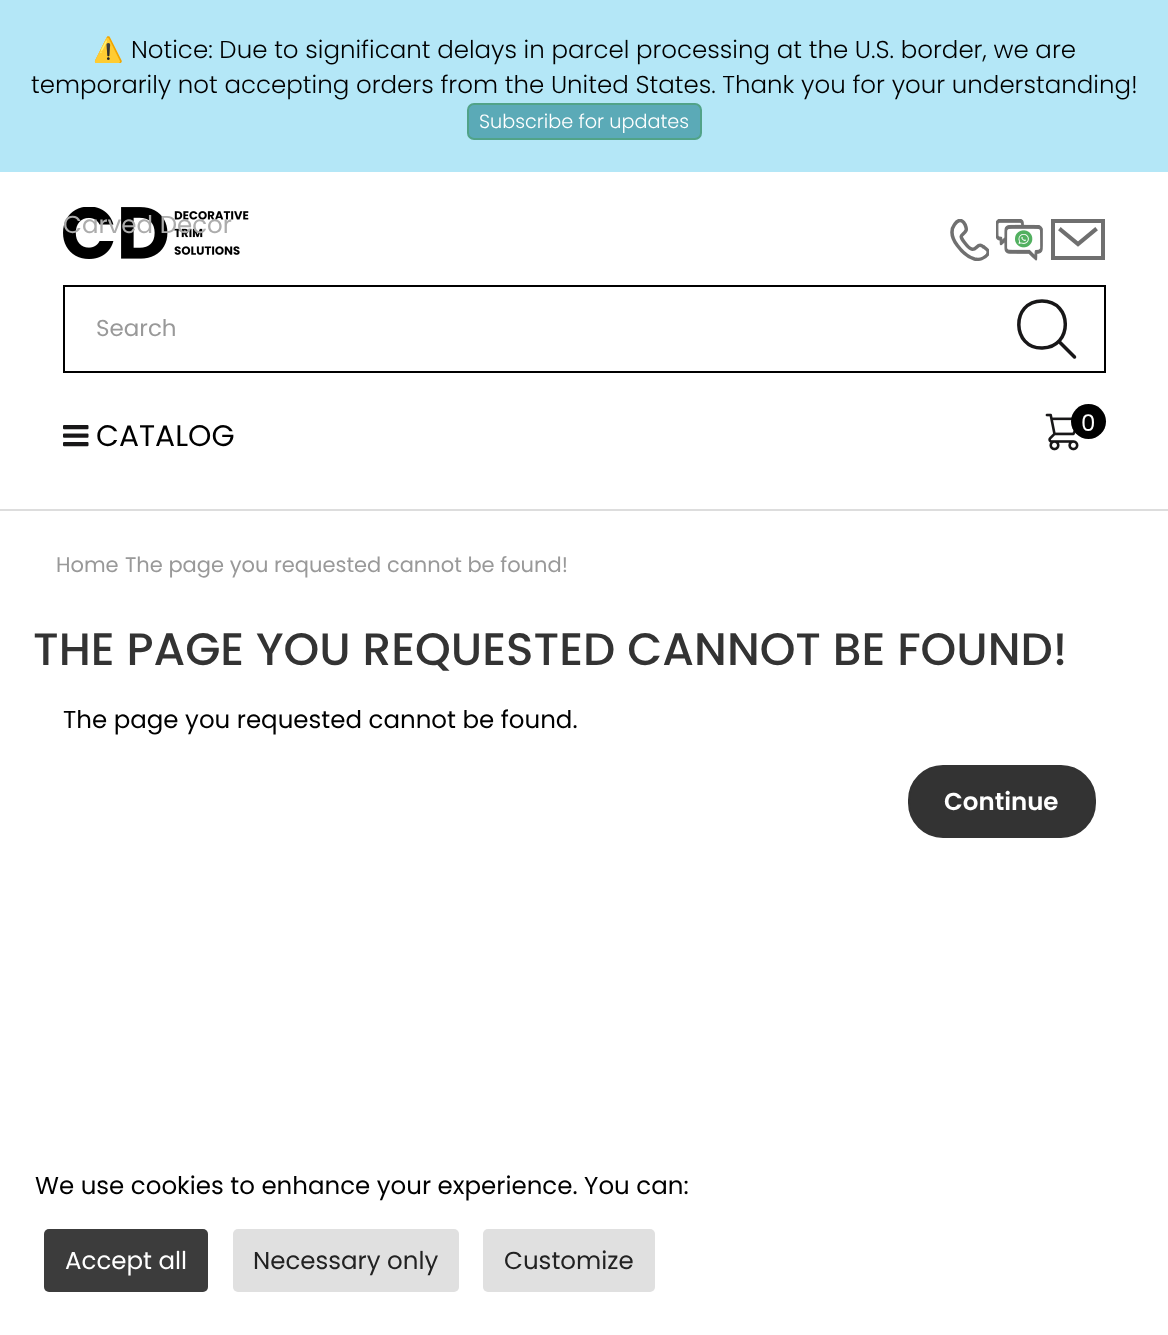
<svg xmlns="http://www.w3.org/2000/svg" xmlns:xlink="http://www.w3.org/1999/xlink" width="1168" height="1335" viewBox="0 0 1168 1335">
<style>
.cls-1{font:24.5px Noto Color Emoji;fill:#000000}
.cls-2{font:300 24.5px Poppins;fill:#000000}
.cls-3{font:300 19.25px Poppins;fill:#ffffff}
.cls-4{font:24.5px Poppins;fill:#acacac}
.cls-5{font:23px Poppins;fill:#999999}
.cls-6{font:23px Poppins;fill:#ffffff}
.cls-7{font:29.75px Poppins;fill:#000000}
.cls-8{font:21px Poppins;fill:#999999}
.cls-9{font:500 45.5px Poppins;fill:#333333}
.cls-10{font:24.5px Poppins;fill:#000000}
.cls-11{font:600 24.5px Poppins;fill:#ffffff}
.cls-12{font:24.5px Poppins;fill:#ffffff}
.cls-13{font:24.5px Poppins;fill:#222222}
</style>
<defs>
<clipPath id="clip1"><rect x="950" y="219" width="39" height="42"/></clipPath>
</defs>
<rect width="100%" height="100%" fill="#ffffff"/>
<rect fill="#b4e7f7" x="0" y="0" width="1168" height="172"/>
<rect fill="#5baab7" stroke="#51a388" stroke-width="2" x="468" y="104" width="233" height="35" rx="6"/>
<rect fill="#dddddd" x="0" y="509" width="1168" height="2"/>
<image xlink:href="image0.png" x="63" y="207" width="186" height="52"/>
<g clip-path="url(#clip1)">
<path fill="none" stroke="#707070" stroke-width="3.5" d="M974.5 259C964 256 945.5 237 954.5 224.5C962 213.5 967.5 228 966 230.5C963.5 236 957.5 233.5 964.5 242.5C976.5 258.5 975.5 240.5 983 246.5C985 248 988 249.5 988.5 252L987.5 254.5C984.5 258.5 979 260 974.5 259Z"/>
</g>
<image xlink:href="image1.png" x="996" y="219" width="47" height="42"/>
<path fill="none" stroke="#6f6f6f" stroke-width="4.2" stroke-linecap="square" d="M1061 230L1078 244L1095 230"/>
<rect fill="none" stroke="#6f6f6f" stroke-width="4" x="1053" y="221" width="50" height="37"/>
<rect fill="#000000" x="63" y="285" width="1043" height="2"/>
<rect fill="#000000" x="63" y="371" width="928" height="2"/>
<rect fill="#000000" x="63" y="285" width="2" height="88"/>
<rect fill="#000000" x="1104" y="285" width="2" height="88"/>
<rect fill="#000000" x="989" y="371" width="117" height="2"/>
<path fill="none" stroke="#181718" stroke-width="3.5" d="M1042 301C1010.5 301 1011.5 349 1042.5 348C1073 347.5 1073 301 1042 301Z"/>
<path fill="none" stroke="#181718" stroke-width="3.5" stroke-linecap="round" d="M1060 342.5L1074.5 357"/>
<image xlink:href="image2.png" x="1045" y="413" width="34" height="38"/>
<circle fill="#000000" cx="1088.5" cy="421.5" r="17.5"/>
<image xlink:href="image3.png" x="63" y="425" width="26" height="22"/>
<rect fill="#333333" stroke="#333333" stroke-width="2" x="909" y="766" width="186" height="71" rx="34"/>
<rect fill="#3c3c3c" x="44" y="1229" width="164" height="63" rx="5"/>
<rect fill="#e0e0e0" x="233" y="1229" width="226" height="63" rx="5"/>
<rect fill="#e0e0e0" x="483" y="1229" width="172" height="63" rx="5"/>
<text class="cls-1" x="93" y="58">⚠️</text>
<text class="cls-2" x="131" y="58">Notice: Due to significant delays in parcel processing at the U.S. border, we are</text>
<text class="cls-2" x="31" y="93">temporarily not accepting orders from the United States. Thank you for your understanding!</text>
<text class="cls-3" x="479" y="128">Subscribe for updates</text>
<text class="cls-4" x="63" y="233">Carved Decor</text>
<text class="cls-5" x="96" y="336">Search</text>
<text class="cls-6" x="1081" y="431">0</text>
<text class="cls-7" x="96" y="446">CATALOG</text>
<text class="cls-8" x="56" y="572">Home</text>
<text class="cls-8" x="125" y="572">The page you requested cannot be found!</text>
<text class="cls-9" x="33" y="665">THE PAGE YOU REQUESTED CANNOT BE FOUND!</text>
<text class="cls-10" x="63" y="728">The page you requested cannot be found.</text>
<text class="cls-11" x="944" y="810">Continue</text>
<text class="cls-10" x="35" y="1194">We use cookies to enhance your experience. You can:</text>
<text class="cls-12" x="65" y="1269">Accept all</text>
<text class="cls-13" x="253" y="1269">Necessary only</text>
<text class="cls-13" x="504" y="1269">Customize</text>
</svg>
